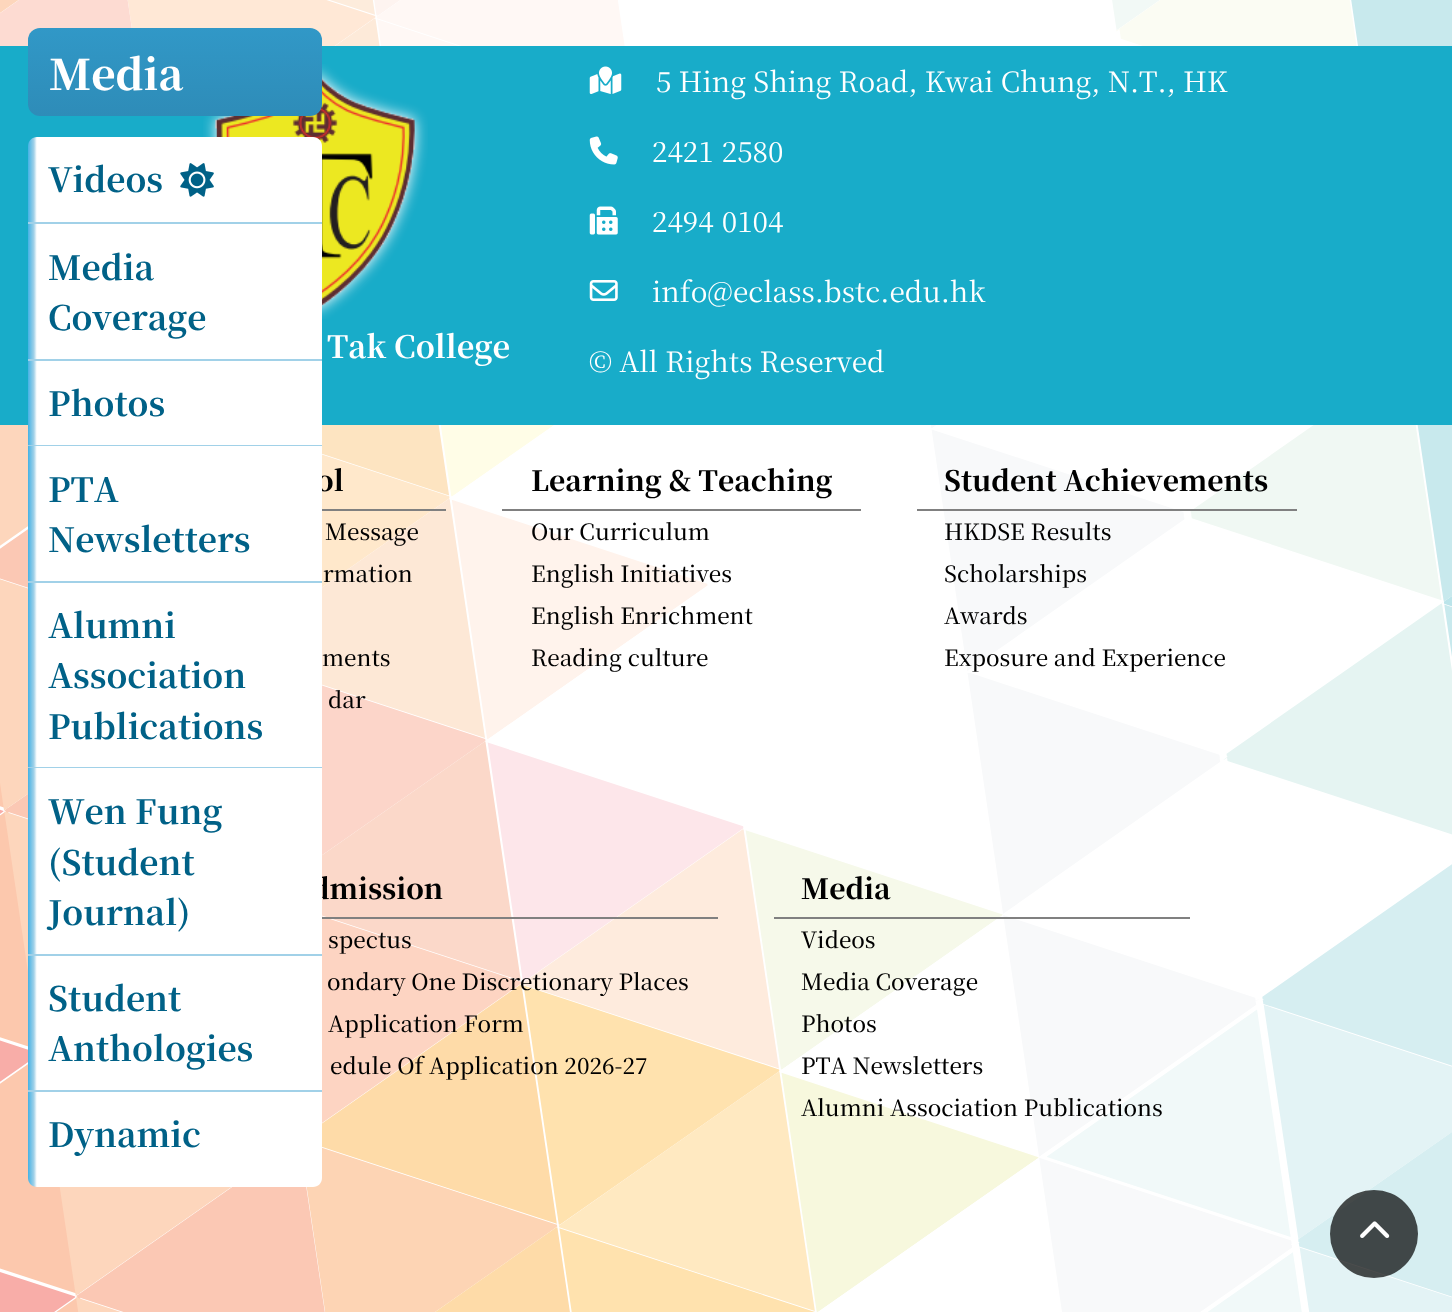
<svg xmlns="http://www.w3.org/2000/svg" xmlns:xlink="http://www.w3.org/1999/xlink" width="1452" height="1312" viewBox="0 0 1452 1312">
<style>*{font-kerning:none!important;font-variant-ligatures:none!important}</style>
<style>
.cls-1{font:800 42px Noto Serif TC;fill:#ffffff}
.cls-2{font:bold 33.5px Noto Serif TC;fill:#006187}
.cls-3{font:bold 30.75px Noto Serif TC;fill:#ffffff}
.cls-4{font:28px Noto Serif TC;fill:#ffffff}
.cls-5{font:800 28px Noto Serif TC;fill:#000000}
.cls-6{font:500 22.4px Noto Serif TC;fill:#000000}
</style>
<defs>
<linearGradient id="g1" gradientUnits="userSpaceOnUse" x1="175" y1="28" x2="175" y2="116"><stop offset="0" stop-color="#3198c7"/><stop offset="1" stop-color="#2e8cb8"/></linearGradient>
<linearGradient id="g2" gradientUnits="userSpaceOnUse" x1="28" y1="179" x2="322" y2="179"><stop offset="0" stop-color="#44b2e5"/><stop offset="0.02" stop-color="#a1d1e8"/><stop offset="0.03" stop-color="#ffffff"/><stop offset="1" stop-color="#ffffff"/></linearGradient>
<linearGradient id="g3" gradientUnits="userSpaceOnUse" x1="28" y1="291" x2="322" y2="291"><stop offset="0" stop-color="#44b2e5"/><stop offset="0.02" stop-color="#a1d1e8"/><stop offset="0.03" stop-color="#ffffff"/><stop offset="1" stop-color="#ffffff"/></linearGradient>
<linearGradient id="g4" gradientUnits="userSpaceOnUse" x1="28" y1="403" x2="322" y2="403"><stop offset="0" stop-color="#44b2e5"/><stop offset="0.02" stop-color="#a1d1e8"/><stop offset="0.03" stop-color="#ffffff"/><stop offset="1" stop-color="#ffffff"/></linearGradient>
<linearGradient id="g5" gradientUnits="userSpaceOnUse" x1="28" y1="675" x2="322" y2="675"><stop offset="0" stop-color="#44b2e5"/><stop offset="0.02" stop-color="#a1d1e8"/><stop offset="0.03" stop-color="#ffffff"/><stop offset="1" stop-color="#ffffff"/></linearGradient>
<linearGradient id="g6" gradientUnits="userSpaceOnUse" x1="28" y1="1023" x2="322" y2="1023"><stop offset="0" stop-color="#44b2e5"/><stop offset="0.02" stop-color="#a1d1e8"/><stop offset="0.03" stop-color="#ffffff"/><stop offset="1" stop-color="#ffffff"/></linearGradient>
<linearGradient id="g7" gradientUnits="userSpaceOnUse" x1="28" y1="1159" x2="322" y2="1159"><stop offset="0" stop-color="#44b2e5"/><stop offset="0.02" stop-color="#a1d1e8"/><stop offset="0.03" stop-color="#ffffff"/><stop offset="1" stop-color="#ffffff"/></linearGradient>
<linearGradient id="g8" gradientUnits="userSpaceOnUse" x1="28" y1="514" x2="322" y2="514"><stop offset="0" stop-color="#44b2e5"/><stop offset="0.02" stop-color="#a1d1e8"/><stop offset="0.03" stop-color="#ffffff"/><stop offset="1" stop-color="#ffffff"/></linearGradient>
<linearGradient id="g9" gradientUnits="userSpaceOnUse" x1="28" y1="861" x2="322" y2="861"><stop offset="0" stop-color="#44b2e5"/><stop offset="0.02" stop-color="#a1d1e8"/><stop offset="0.03" stop-color="#ffffff"/><stop offset="1" stop-color="#ffffff"/></linearGradient>
</defs>
<rect width="100%" height="100%" fill="#ffffff"/>
<image xlink:href="image0.png" x="0" y="0" width="1452" height="1312"/>
<rect fill="#18acc9" x="0" y="46" width="1452" height="379"/>
<image xlink:href="image2.png" x="203" y="64" width="225" height="255"/>
<rect fill="url(#g1)" x="28" y="28" width="294" height="88" rx="12"/>
<path fill="url(#g2)" d="M37 137H313C318 137 322 141 322 146V224H28V146C28 141 32 137 37 137Z"/>
<rect fill="#a1d1e8" x="28" y="222" width="294" height="2"/>
<image xlink:href="image1.png" x="180" y="163" width="34" height="34"/>
<rect fill="url(#g3)" x="28" y="224" width="294" height="135"/>
<rect fill="#a1d1e8" x="28" y="359" width="294" height="2"/>
<rect fill="url(#g4)" x="28" y="361" width="294" height="84"/>
<rect fill="#a1d1e8" x="28" y="445" width="294" height="1"/>
<rect fill="#a1d1e8" x="28" y="581" width="294" height="2"/>
<rect fill="url(#g5)" x="28" y="583" width="294" height="184"/>
<rect fill="#a1d1e8" x="28" y="767" width="294" height="1"/>
<rect fill="#a1d1e8" x="28" y="954" width="294" height="2"/>
<rect fill="url(#g6)" x="28" y="956" width="294" height="134"/>
<rect fill="#a1d1e8" x="28" y="1090" width="294" height="2"/>
<path fill="url(#g7)" d="M28 1092H322V1178C322 1183 318 1187 313 1187H37C32 1187 28 1183 28 1178Z"/>
<image xlink:href="image3.png" x="589" y="66" width="33" height="28"/>
<image xlink:href="image4.png" x="589" y="136" width="29" height="29"/>
<image xlink:href="image5.png" x="589" y="206" width="29" height="29"/>
<image xlink:href="image6.png" x="589" y="280" width="29" height="21"/>
<rect fill="#808080" x="322" y="509" width="124" height="2"/>
<rect fill="#808080" x="502" y="509" width="359" height="2"/>
<rect fill="#808080" x="917" y="509" width="380" height="2"/>
<rect fill="#808080" x="322" y="917" width="396" height="2"/>
<rect fill="#808080" x="774" y="917" width="416" height="2"/>
<circle fill="#000000" fill-opacity="0.7" cx="1374" cy="1234" r="44"/>
<image xlink:href="image7.png" x="1360" y="1221" width="30" height="17"/>
<text class="cls-1" x="49" y="90">Media</text>
<text class="cls-2" x="48" y="192">Videos</text>
<text class="cls-2"><tspan x="48" y="280">Media</tspan><tspan x="48" y="330">Coverage</tspan></text>
<text class="cls-2" x="48" y="416">Photos</text>
<text class="cls-2"><tspan x="48" y="638">Alumni</tspan><tspan x="48" y="688">Association</tspan><tspan x="48" y="739">Publications</tspan></text>
<text class="cls-2"><tspan x="48" y="1011">Student</tspan><tspan x="48" y="1061">Anthologies</tspan></text>
<text class="cls-2" x="48" y="1147">Dynamic</text>
<text class="cls-3" x="327" y="358">Tak College</text>
<text class="cls-4" x="656" y="92">5 Hing Shing Road, Kwai Chung, N.T.,</text>
<text class="cls-4" x="1183" y="92">HK</text>
<text class="cls-4" x="652" y="162" word-spacing="1">2421 2580</text>
<text class="cls-4" x="652" y="232" word-spacing="1">2494 0104</text>
<text class="cls-4" x="652" y="302">info@eclass.bstc.edu.hk</text>
<text class="cls-4" x="589" y="372">© All Rights Reserved</text>
<text class="cls-5" x="316" y="491">ol</text>
<rect fill="url(#g8)" x="28" y="446" width="294" height="135"/>
<text class="cls-2" x="48" y="552">Newsletters</text>
<text class="cls-2" x="48" y="502">PTA</text>
<text class="cls-6" x="325" y="540">Message</text>
<text class="cls-6" x="323" y="582">rmation</text>
<text class="cls-6" x="322" y="666">ments</text>
<text class="cls-6" x="328" y="708">dar</text>
<text class="cls-5" x="531" y="491">Learning &amp; Teaching</text>
<text class="cls-6"><tspan x="531" y="540">Our Curriculum</tspan><tspan x="531" y="582">English Initiatives</tspan><tspan x="531" y="624">English Enrichment</tspan><tspan x="531" y="666">Reading culture</tspan></text>
<text class="cls-5" x="944" y="491">Student Achievements</text>
<text class="cls-6"><tspan x="944" y="540">HKDSE Results</tspan><tspan x="944" y="582">Scholarships</tspan><tspan x="944" y="624">Awards</tspan><tspan x="944" y="666">Exposure and Experience</tspan></text>
<text class="cls-5" x="311" y="899">dmission</text>
<rect fill="url(#g9)" x="28" y="768" width="294" height="186"/>
<text class="cls-2" x="48" y="925">Journal)</text>
<text class="cls-2" x="48" y="875">(Student</text>
<text class="cls-2" x="48" y="824">Wen Fung</text>
<text class="cls-6" x="328" y="948">spectus</text>
<text class="cls-6" x="327" y="990">ondary One Discretionary Places</text>
<text class="cls-6" x="328" y="1032">Application Form</text>
<text class="cls-6" x="330" y="1074">edule Of Application 2026-27</text>
<text class="cls-5" x="801" y="899">Media</text>
<text class="cls-6"><tspan x="801" y="948">Videos</tspan><tspan x="801" y="990">Media Coverage</tspan><tspan x="801" y="1032">Photos</tspan><tspan x="801" y="1074">PTA Newsletters</tspan><tspan x="801" y="1116">Alumni Association Publications</tspan></text>
</svg>
